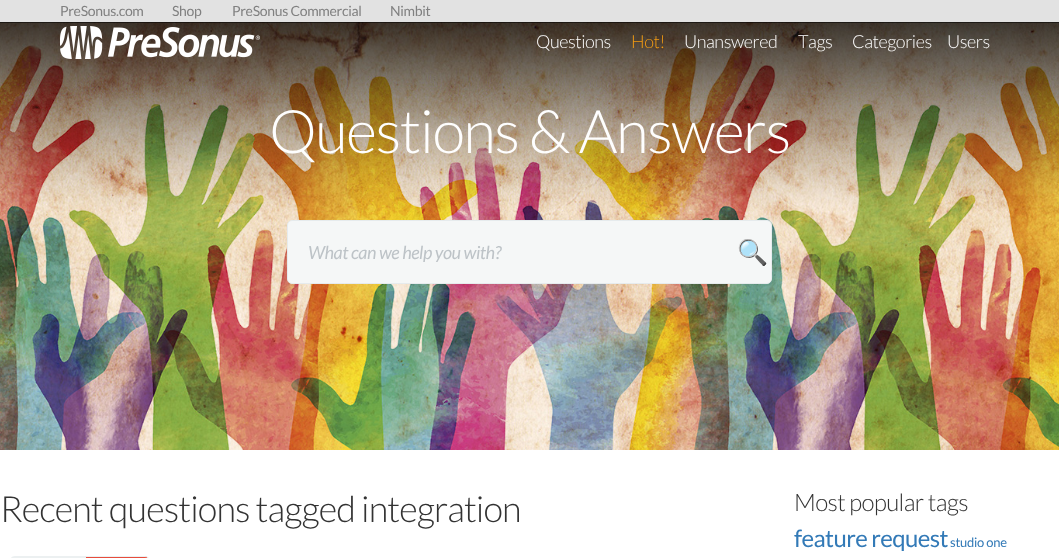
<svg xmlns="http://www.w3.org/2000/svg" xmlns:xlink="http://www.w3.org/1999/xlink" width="1059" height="558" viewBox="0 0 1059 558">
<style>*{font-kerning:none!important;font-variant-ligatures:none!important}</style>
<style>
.cls-1{font:14px Lato;letter-spacing:-0.3px;fill:#808080}
.cls-2{font:300 18px Lato;letter-spacing:-0.45px;fill:#fefefe}
.cls-3{font:300 18px Lato;letter-spacing:-0.45px;fill:#f39c12}
.cls-4{font:300 60px Lato;letter-spacing:-1.5px;fill:#fefefe}
.cls-5{font:italic 18px Lato;letter-spacing:-0.45px;fill:#bdc3c7}
.cls-6{font:25px Noto Color Emoji;letter-spacing:-0.3px;fill:#cccccc}
.cls-7{font:300 36px Lato;letter-spacing:-0.9px;fill:#333333}
.cls-8{font:300 24px Lato;letter-spacing:-0.6px;fill:#333333}
.cls-9{font:24px Lato;letter-spacing:-0.6px;fill:#337ab7}
.cls-10{font:13px Lato;letter-spacing:-0.25px;fill:#337ab7}
</style>
<rect width="100%" height="100%" fill="#ffffff"/>
<image xlink:href="image1.png" x="0" y="22" width="1059" height="428"/>
<rect fill="#000000" fill-opacity="0.5" filter="blur(0.5px)" x="-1" y="-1" width="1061" height="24"/>
<rect fill="#e2e2e2" x="0" y="0" width="1059" height="22"/>
<image xlink:href="image0.png" x="60" y="26" width="200" height="33"/>
<rect fill="#f5f7f7" stroke="#e6ebed" x="287.5" y="220.5" width="484" height="63" rx="4.5"/>
<path fill="#ecf0f1" d="M15 556H85V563H15C12 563 10 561 10 558V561C10 558 12 556 15 556Z"/>
<path fill="#e74c3c" stroke="#ecf0f1" d="M85.5 556.5H145C147.5 556.5 149.5 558.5 149.5 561V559C149.5 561.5 147.5 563.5 145 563.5H85.5Z"/>
<text class="cls-1" x="60" y="16">PreSonus.com</text>
<text class="cls-1" x="172" y="16">Shop</text>
<text class="cls-1" x="232" y="16">PreSonus Commercial</text>
<text class="cls-1" x="390" y="16">Nimbit</text>
<text class="cls-2" x="536" y="48">Questions</text>
<text class="cls-3" x="631" y="48">Hot!</text>
<text class="cls-2" x="684" y="48">Unanswered</text>
<text class="cls-2" x="798" y="48">Tags</text>
<text class="cls-2" x="852" y="48">Categories</text>
<text class="cls-2" x="947" y="48">Users</text>
<text class="cls-4" x="269" y="153">Questions &amp; Answers</text>
<text class="cls-5" x="308" y="259">What can we help you with?</text>
<text class="cls-6" x="737" y="261">🔍</text>
<text class="cls-7" x="0" y="522">Recent questions tagged integration</text>
<text class="cls-8" x="794" y="511">Most popular tags</text>
<text class="cls-9" x="794" y="547">feature request</text>
<text class="cls-10" x="950" y="547">studio one</text>
</svg>
